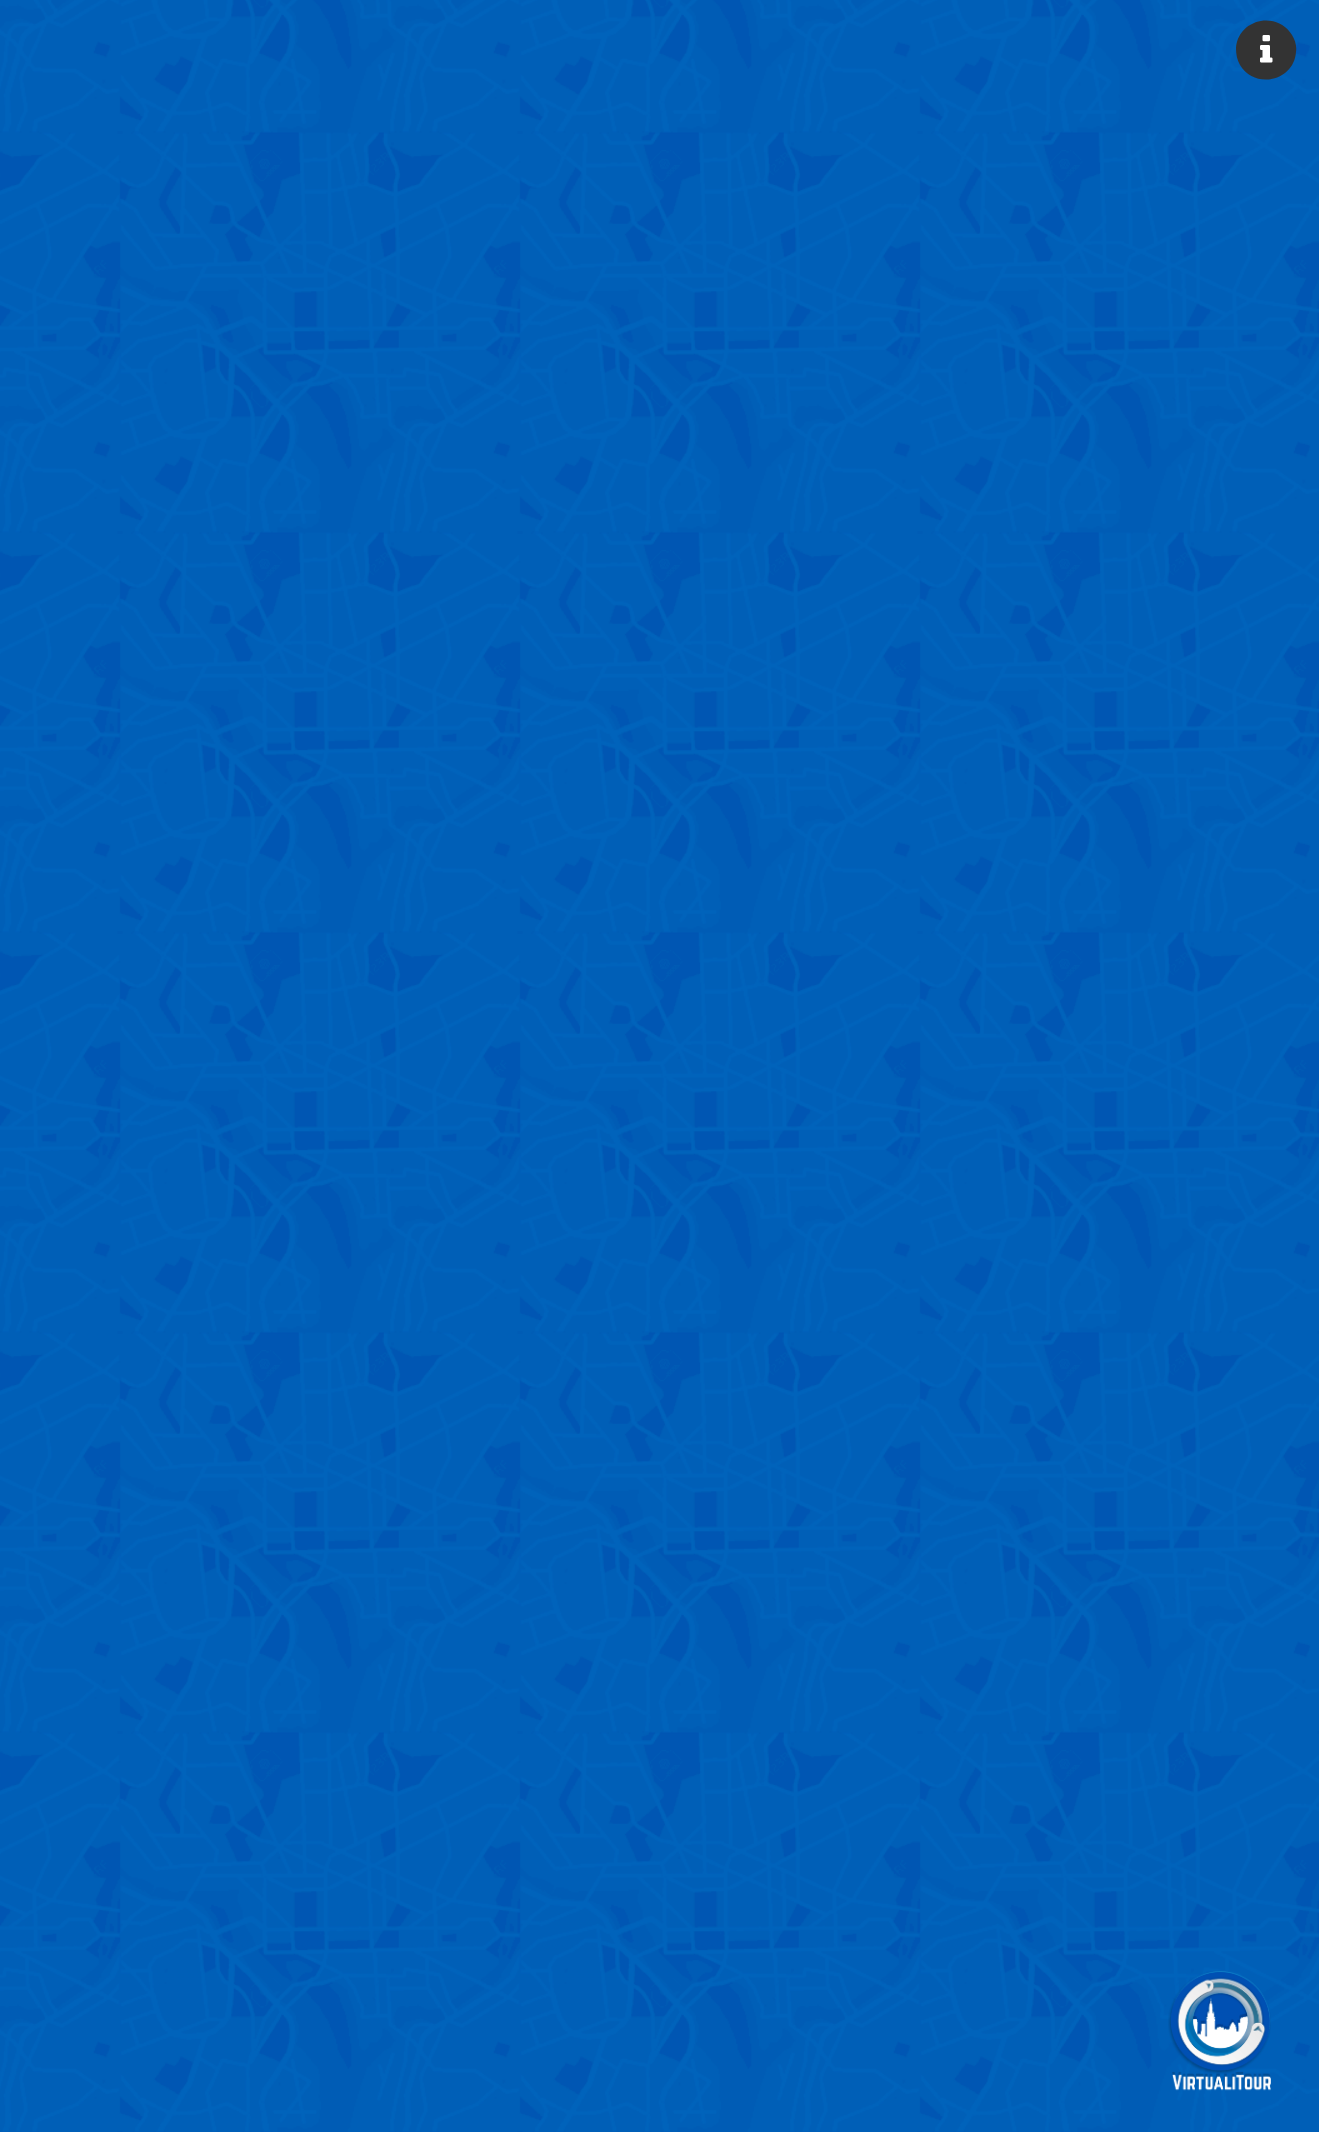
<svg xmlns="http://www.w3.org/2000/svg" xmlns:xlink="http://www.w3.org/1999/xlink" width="1319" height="2132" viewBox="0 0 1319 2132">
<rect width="100%" height="100%" fill="#ffffff"/>
<image xlink:href="image0.png" x="0" y="0" width="1319" height="2132"/>
<path fill="#333333" d="M1292 35C1295 40 1297 46 1296 52C1294 81 1255 90 1240 65C1237 60 1236 54 1236 48C1238 19 1277 10 1292 35Z"/>
<image xlink:href="image1.png" x="1260" y="35" width="13" height="28"/>
<image xlink:href="image2.png" x="1168" y="1971" width="103" height="120"/>
</svg>
